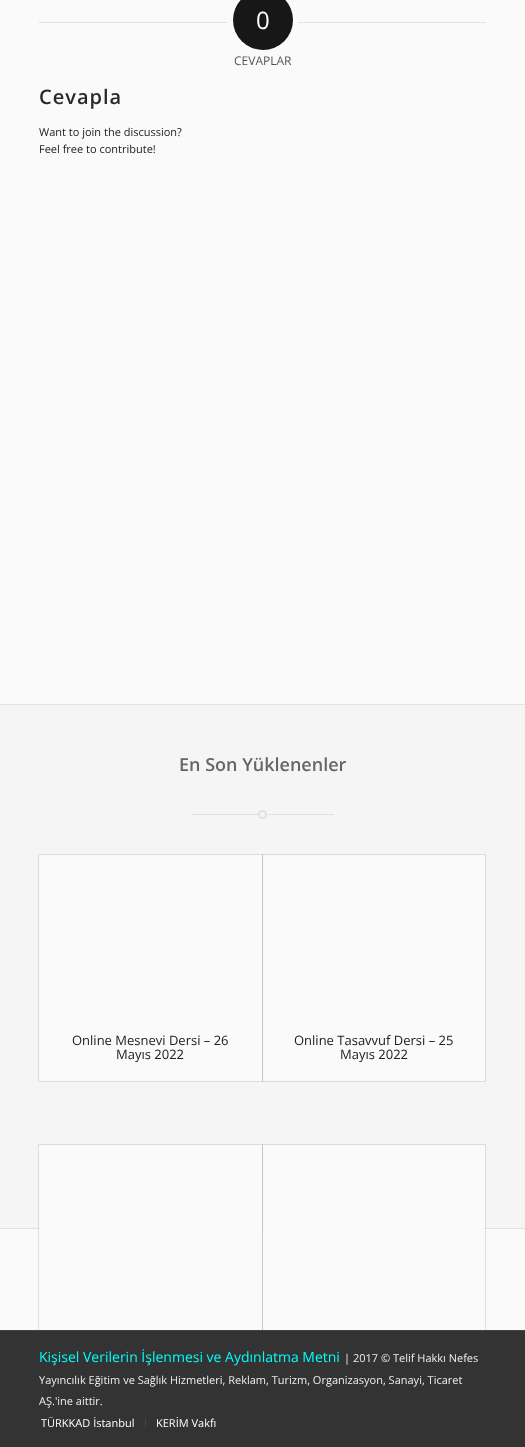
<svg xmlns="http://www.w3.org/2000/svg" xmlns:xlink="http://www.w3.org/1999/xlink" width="525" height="1447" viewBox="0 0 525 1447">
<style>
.cls-1{font:24px Open Sans;fill:#ffffff}
.cls-2{font:12px Open Sans;fill:#545454}
.cls-3{font:600 20px Open Sans;letter-spacing:1px;fill:#292929}
.cls-4{font:11px Open Sans;fill:#212121}
.cls-5{font:600 18px Open Sans;fill:#666666}
.cls-6{font:13px Open Sans;fill:#212121}
.cls-7{font:14px Open Sans;fill:#00ffff}
.cls-8{font:11px Open Sans;fill:#eeeeee}
.cls-9{font:11px Open Sans;fill:#ffffff}
</style>
<rect width="100%" height="100%" fill="#f5f5f5"/>
<rect fill="#fafafa" x="0" y="0" width="525" height="704"/>
<rect fill="#e1e1e1" x="39" y="22" width="188" height="1"/>
<circle fill="#171717" cx="263" cy="20" r="30"/>
<rect fill="#e1e1e1" x="298" y="22" width="188" height="1"/>
<rect fill="#e1e1e1" x="0" y="704" width="525" height="1"/>
<rect fill="#e1e1e1" x="191" y="814" width="143" height="1"/>
<circle fill="#f5f5f5" stroke="#e1e1e1" stroke-width="2" cx="262.5" cy="814.5" r="3.5"/>
<rect fill="none" stroke="#dddddd" x="38.5" y="854.5" width="224" height="227"/>
<rect fill="#fafafa" x="39" y="855" width="223" height="226"/>
<rect fill="none" stroke="#000000" stroke-opacity="0.1" x="262.5" y="854.5" width="223" height="227"/>
<rect fill="#fafafa" x="263" y="855" width="222" height="226"/>
<rect fill="#fafafa" x="0" y="1229" width="525" height="101"/>
<rect fill="#e1e1e1" x="0" y="1228" width="525" height="1"/>
<rect fill="none" stroke="#000000" stroke-opacity="0.1" x="38.5" y="1144.5" width="224" height="228"/>
<rect fill="#fafafa" x="39" y="1145" width="223" height="84"/>
<rect fill="none" stroke="#000000" stroke-opacity="0.1" x="262.5" y="1144.5" width="223" height="228"/>
<rect fill="#fafafa" x="263" y="1145" width="222" height="84"/>
<rect fill="#333333" x="0" y="1331" width="525" height="116"/>
<rect fill="#444444" x="0" y="1330" width="525" height="1"/>
<rect fill="#444444" x="145" y="1418" width="1" height="10"/>
<text class="cls-1" x="256" y="29">0</text>
<text class="cls-2" x="234" y="65">CEVAPLAR</text>
<text class="cls-3" x="39" y="104">Cevapla</text>
<text class="cls-4"><tspan x="39" y="136">Want to join the discussion?</tspan><tspan x="39" y="153">Feel free to contribute!</tspan></text>
<text class="cls-5" x="179" y="771">En Son Yüklenenler</text>
<text class="cls-6" x="72" y="1045">Online Mesnevi Dersi – 26</text>
<text class="cls-6" x="116" y="1059">Mayıs 2022</text>
<text class="cls-6" x="294" y="1045">Online Tasavvuf Dersi – 25</text>
<text class="cls-6" x="340" y="1059">Mayıs 2022</text>
<text class="cls-7" x="39" y="1362">Kişisel Verilerin İşlenmesi ve Aydınlatma Metni</text>
<text class="cls-8" x="344" y="1362">| 2017 © Telif Hakkı Nefes</text>
<text class="cls-8"><tspan x="39" y="1384">Yayıncılık Eğitim ve Sağlık Hizmetleri, Reklam, Turizm, Organizasyon, Sanayi, Ticaret</tspan><tspan x="39" y="1405">AŞ.'ine aittir.</tspan></text>
<text class="cls-9" x="41" y="1427">TÜRKKAD İstanbul</text>
<text class="cls-9" x="156" y="1427">KERİM Vakfı</text>
</svg>
